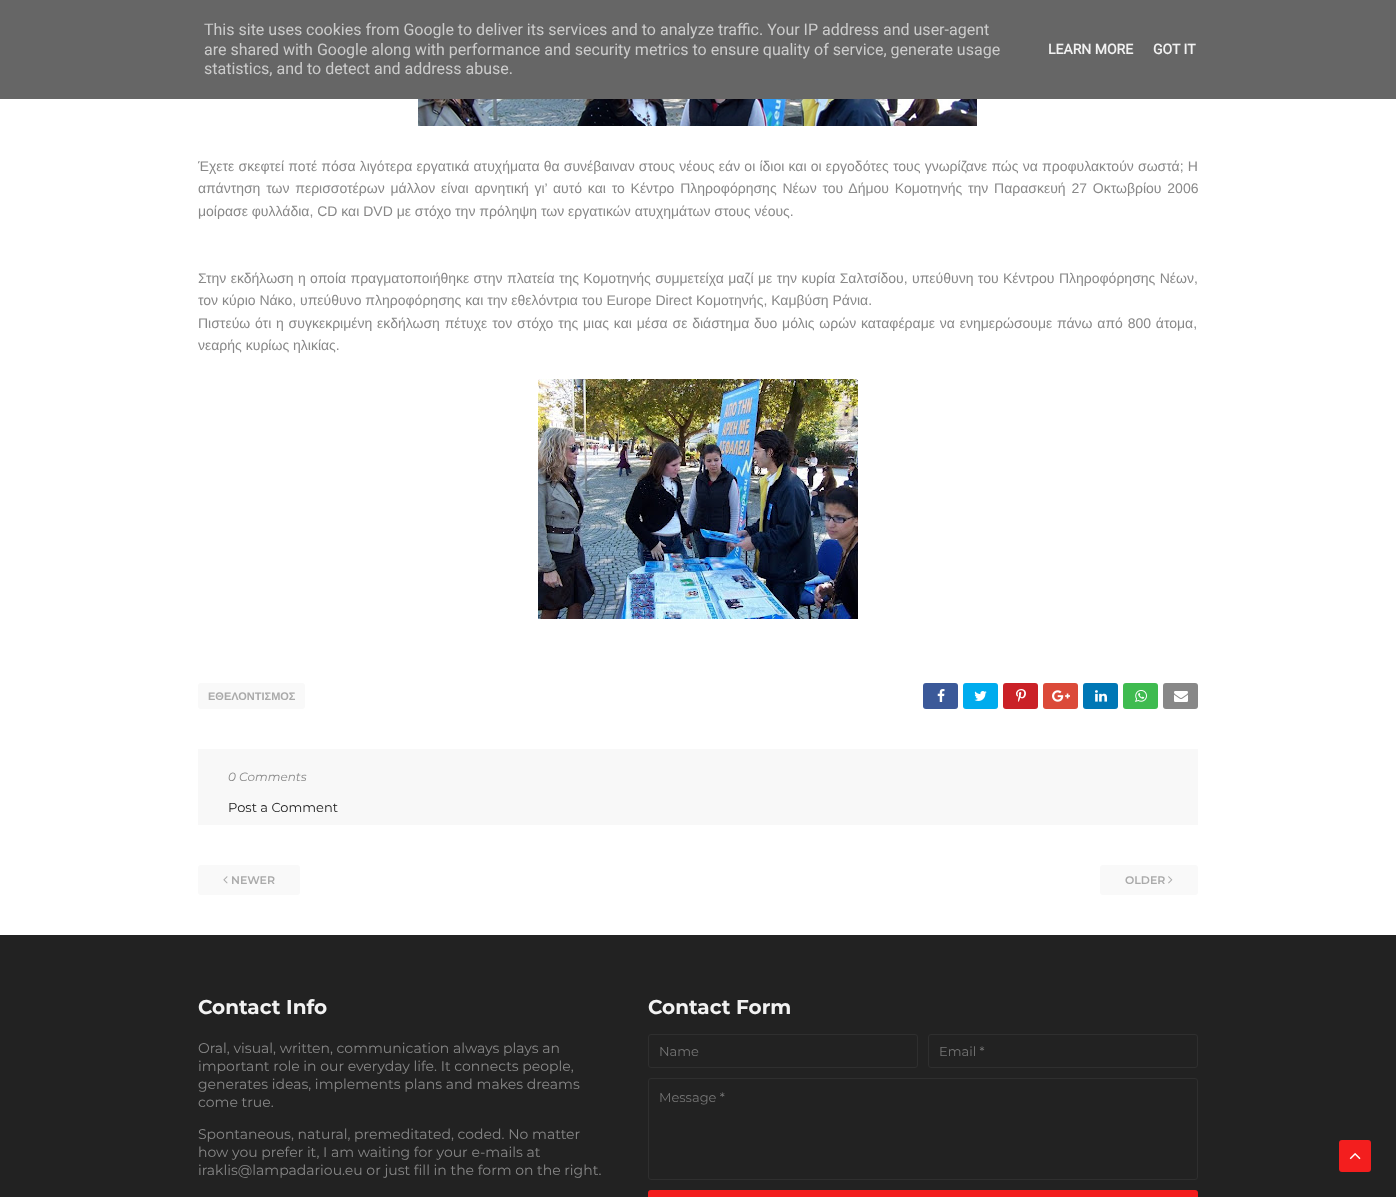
<svg xmlns="http://www.w3.org/2000/svg" xmlns:xlink="http://www.w3.org/1999/xlink" width="1396" height="1197" viewBox="0 0 1396 1197">
<style>
.cls-1{font:16px Roboto;fill:#cccccc}
.cls-2{font:bold 14px Roboto;fill:#f2f2f2}
.cls-3{font:14px Liberation Sans;fill:#888888}
.cls-4{font:bold 11px Liberation Sans;fill:#aaaaaa}
.cls-5{font:italic 12px Montserrat;fill:#888888}
.cls-6{font:13px Montserrat;fill:#222222}
.cls-7{font:600 11px Montserrat;fill:#aaaaaa}
.cls-8{font:bold 20px Montserrat;fill:#f2f2f2}
.cls-9{font:14px Montserrat;fill:#888888}
.cls-10{font:13px Montserrat;fill:#757575}
</style>
<rect width="100%" height="100%" fill="#ffffff"/>
<rect fill="#666666" x="0" y="0" width="1396" height="99"/>
<image xlink:href="image0.png" x="418" y="99" width="559" height="27"/>
<image xlink:href="image1.png" x="538" y="379" width="320" height="240"/>
<rect fill="#f9f9f9" x="198" y="683" width="107" height="26" rx="3"/>
<rect fill="#3b5999" x="923" y="683" width="35" height="26" rx="3"/>
<image xlink:href="image2.png" x="937" y="689" width="8" height="13"/>
<rect fill="#00acee" x="963" y="683" width="35" height="26" rx="3"/>
<image xlink:href="image3.png" x="974" y="691" width="13" height="10"/>
<rect fill="#ca2127" x="1003" y="683" width="35" height="26" rx="3"/>
<image xlink:href="image4.png" x="1016" y="689" width="10" height="13"/>
<rect fill="#db4a39" x="1043" y="683" width="35" height="26" rx="3"/>
<image xlink:href="image5.png" x="1052" y="690" width="18" height="12"/>
<rect fill="#0077b5" x="1083" y="683" width="35" height="26" rx="3"/>
<image xlink:href="image6.png" x="1095" y="690" width="12" height="12"/>
<rect fill="#3fbb50" x="1123" y="683" width="35" height="26" rx="3"/>
<image xlink:href="image7.png" x="1135" y="690" width="12" height="12"/>
<rect fill="#888888" x="1163" y="683" width="35" height="26" rx="3"/>
<image xlink:href="image8.png" x="1174" y="691" width="14" height="11"/>
<rect fill="#f8f8f8" x="198" y="749" width="1000" height="76"/>
<rect fill="#f9f9f9" x="198" y="865" width="102" height="30" rx="3"/>
<image xlink:href="image9.png" x="223" y="876" width="5" height="8"/>
<rect fill="#f9f9f9" x="1100" y="865" width="98" height="30" rx="3"/>
<image xlink:href="image10.png" x="1168" y="876" width="5" height="8"/>
<rect fill="#222222" x="0" y="935" width="1396" height="262"/>
<rect fill="none" stroke="#2f2f2f" x="648.5" y="1034.5" width="269" height="33" rx="2.5"/>
<rect fill="none" stroke="#2f2f2f" x="928.5" y="1034.5" width="269" height="33" rx="2.5"/>
<rect fill="none" stroke="#2f2f2f" x="648.5" y="1078.5" width="549" height="101" rx="2.5"/>
<rect fill="#f31e1e" x="648" y="1190" width="550" height="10" rx="3"/>
<rect fill="#f31e1e" x="1339" y="1140" width="32" height="32" rx="3"/>
<image xlink:href="image11.png" x="1349" y="1153" width="12" height="7"/>
<text class="cls-1"><tspan x="204" y="35">This site uses cookies from Google to deliver its services and to analyze traffic. Your IP address and user-agent</tspan><tspan x="204" y="55">are shared with Google along with performance and security metrics to ensure quality of service, generate usage</tspan><tspan x="204" y="74">statistics, and to detect and address abuse.</tspan></text>
<text class="cls-2" x="1048" y="54">LEARN MORE</text>
<text class="cls-2" x="1153" y="54">GOT IT</text>
<text class="cls-3"><tspan x="198" y="171" word-spacing="0.3">Έχετε σκεφτεί ποτέ πόσα λιγότερα εργατικά ατυχήματα θα συνέβαιναν στους νέους εάν οι ίδιοι και οι εργοδότες τους γνωρίζανε πώς να προφυλακτούν σωστά; Η</tspan><tspan x="198" y="193" word-spacing="1.9">απάντηση των περισσοτέρων μάλλον είναι αρνητική γι’ αυτό και το Κέντρο Πληροφόρησης Νέων του Δήμου Κομοτηνής την Παρασκευή 27 Οκτωβρίου 2006</tspan><tspan x="198" y="216">μοίρασε φυλλάδια, CD και DVD με στόχο την πρόληψη των εργατικών ατυχημάτων στους νέους.</tspan></text>
<text class="cls-3"><tspan x="198" y="283" word-spacing="0.5">Στην εκδήλωση η οποία πραγματοποιήθηκε στην πλατεία της Κομοτηνής συμμετείχα μαζί με την κυρία Σαλτσίδου, υπεύθυνη του Κέντρου Πληροφόρησης Νέων,</tspan><tspan x="198" y="305">τον κύριο Νάκο, υπεύθυνο πληροφόρησης και την εθελόντρια του Europe Direct Κομοτηνής, Καμβύση Ράνια.</tspan><tspan x="198" y="328" word-spacing="0.9">Πιστεύω ότι η συγκεκριμένη εκδήλωση πέτυχε τον στόχο της μιας και μέσα σε διάστημα δυο μόλις ωρών καταφέραμε να ενημερώσουμε πάνω από 800 άτομα,</tspan><tspan x="198" y="350">νεαρής κυρίως ηλικίας.</tspan></text>
<text class="cls-4" x="208" y="700">ΕΘΕΛΟΝΤΙΣΜΟΣ</text>
<text class="cls-5" x="228" y="781">0 Comments</text>
<text class="cls-6" x="228" y="812">Post a Comment</text>
<text class="cls-7" x="231" y="884">NEWER</text>
<text class="cls-7" x="1125" y="884">OLDER</text>
<text class="cls-8" x="198" y="1014">Contact Info</text>
<text class="cls-9"><tspan x="198" y="1053">Oral, visual, written, communication always plays an</tspan><tspan x="198" y="1071">important role in our everyday life. It connects people,</tspan><tspan x="198" y="1089">generates ideas, implements plans and makes dreams</tspan><tspan x="198" y="1107">come true.</tspan></text>
<text class="cls-9"><tspan x="198" y="1139">Spontaneous, natural, premeditated, coded. No matter</tspan><tspan x="198" y="1157">how you prefer it, I am waiting for your e-mails at</tspan><tspan x="198" y="1175">iraklis@lampadariou.eu or just fill in the form on the right.</tspan></text>
<text class="cls-8" x="648" y="1014">Contact Form</text>
<text class="cls-10" x="659" y="1056">Name</text>
<text class="cls-10" x="939" y="1056">Email *</text>
<text class="cls-10" x="659" y="1102">Message *</text>
</svg>
